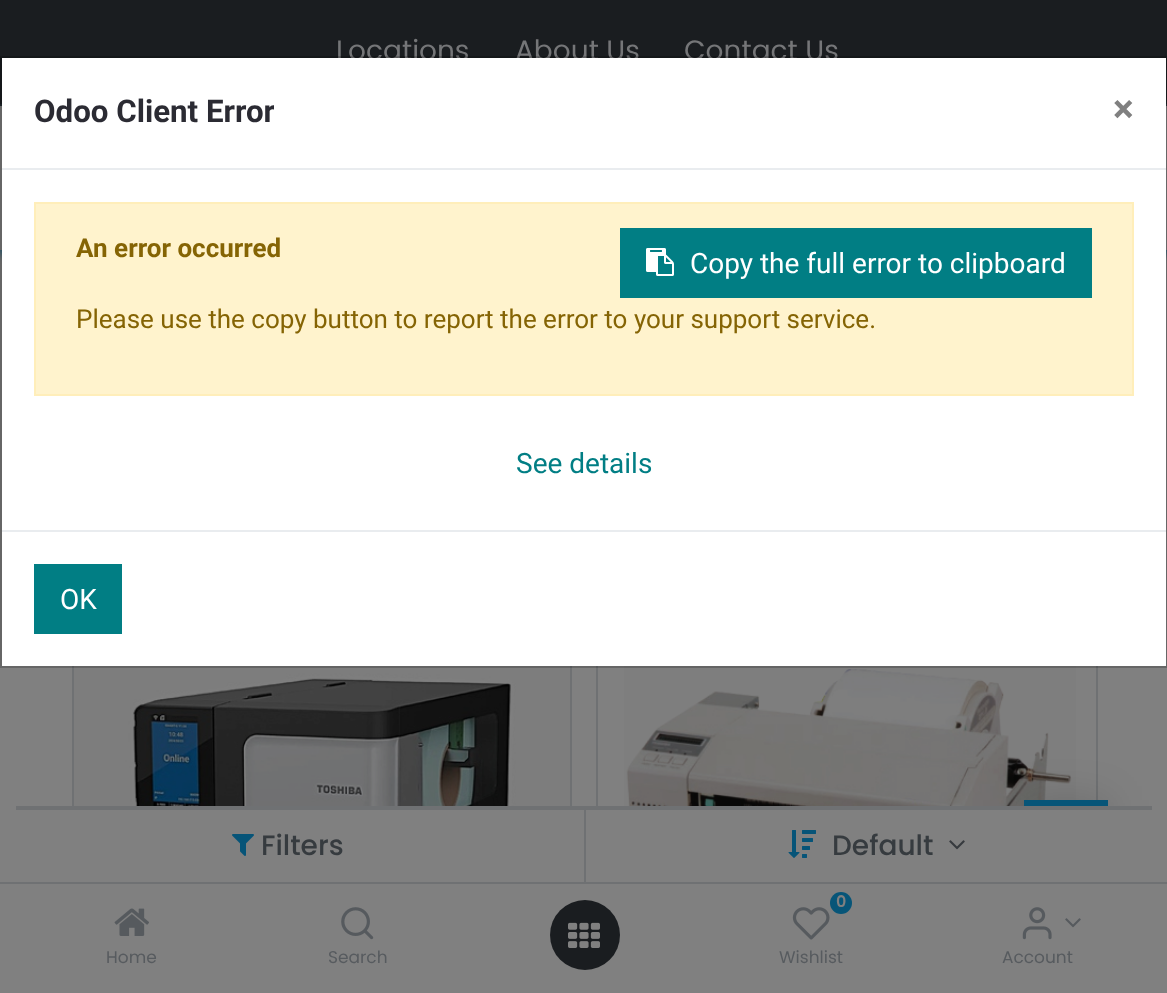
<svg xmlns="http://www.w3.org/2000/svg" xmlns:xlink="http://www.w3.org/1999/xlink" width="1167" height="993" viewBox="0 0 1167 993">
<style>
.cls-1{font:28px Poppins;fill:#757678}
.cls-2{font:500 28px Poppins;fill:#363b3f}
.cls-3{font:17px Poppins;fill:#575b5f}
.cls-4{font:600 16px Poppins;fill:#808080}
.cls-5{font:bold 31.25px Roboto;fill:#2b2b33}
.cls-6{font:bold 39px Roboto;fill:#808080}
.cls-7{font:bold 26px Roboto;fill:#856404}
.cls-8{font:28px Roboto;fill:#ffffff}
.cls-9{font:26px Roboto;fill:#856404}
.cls-10{font:28px Roboto;fill:#017e84}
</style>
<defs>
<clipPath id="clip1"><path d="M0 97H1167V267H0ZM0 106H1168V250H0Z" clip-rule="evenodd"/></clipPath>
<clipPath id="clip2"><rect x="34" y="90" width="240" height="46"/></clipPath>
</defs>
<rect width="100%" height="100%" fill="#808080"/>
<rect fill="#1a1d20" x="0" y="0" width="1167" height="104"/>
<rect fill="#26292c" x="0" y="104" width="1167" height="2"/>
<g clip-path="url(#clip1)">
<rect fill="#075578" filter="blur(4px)" x="0" y="110" width="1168" height="144"/>
</g>
<rect fill="none" stroke="#6f7173" stroke-width="2" x="73" y="553" width="498" height="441"/>
<image xlink:href="image0.png" x="74" y="666" width="496" height="140"/>
<rect fill="none" stroke="#6f7173" stroke-width="2" x="597" y="553" width="500" height="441"/>
<image xlink:href="image1.png" x="624" y="666" width="452" height="140"/>
<rect fill="#000000" fill-opacity="0.15" filter="blur(20px)" x="1024" y="800" width="84" height="84"/>
<rect fill="#075578" x="1024" y="800" width="84" height="6"/>
<path fill="#808080" d="M32 806H1136C1153.5 806 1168 820.5 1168 838V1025H0V838C0 820.5 14.5 806 32 806Z"/>
<rect fill="#6f7173" x="16" y="806" width="1136" height="4"/>
<rect fill="#6f7173" x="0" y="882" width="1167" height="2"/>
<image xlink:href="image2.png" x="232" y="834" width="22" height="22"/>
<rect fill="#6f7173" x="584" y="810" width="2" height="72"/>
<image xlink:href="image3.png" x="788" y="830" width="28" height="28"/>
<image xlink:href="image4.png" x="949" y="840" width="16" height="10"/>
<image xlink:href="image5.png" x="114" y="908" width="35" height="28"/>
<image xlink:href="image6.png" x="341" y="907" width="33" height="33"/>
<circle fill="#1a1d20" cx="585" cy="935" r="35"/>
<image xlink:href="image7.png" x="568" y="922" width="32" height="26"/>
<circle fill="#075578" cx="841" cy="903" r="11"/>
<image xlink:href="image8.png" x="792" y="907" width="38" height="33"/>
<image xlink:href="image9.png" x="1022" y="907" width="30" height="33"/>
<image xlink:href="image10.png" x="1065" y="918" width="16" height="10"/>
<text class="cls-1" x="336" y="60">Locations</text>
<text class="cls-1" x="515" y="60">About Us</text>
<text class="cls-1" x="684" y="60">Contact Us</text>
<text class="cls-2" x="261" y="855">Filters</text>
<text class="cls-2" x="832" y="855">Default</text>
<text class="cls-3" x="106" y="963">Home</text>
<text class="cls-3" x="328" y="963">Search</text>
<text class="cls-4" x="836" y="907">0</text>
<text class="cls-3" x="779" y="963">Wishlist</text>
<text class="cls-3" x="1002" y="963">Account</text>
<rect fill="#ffffff" x="2" y="58" width="1164" height="608"/>
<rect fill="none" stroke="#000000" stroke-opacity="0.2" stroke-width="2" x="1" y="57" width="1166" height="610"/>
<rect fill="#e9ecef" x="2" y="168" width="1164" height="2"/>
<g clip-path="url(#clip2)">
<text class="cls-5" x="34" y="122">Odoo Client Error</text>
</g>
<text class="cls-6" x="1113" y="122">×</text>
<rect fill="#fff3cd" stroke="#ffeeba" stroke-width="2" x="35" y="203" width="1098" height="192"/>
<text class="cls-7" x="76" y="257">An error occurred</text>
<rect fill="#017e84" x="620" y="228" width="472" height="70"/>
<image xlink:href="image11.png" x="646" y="248" width="28" height="28"/>
<text class="cls-8" x="690" y="273">Copy the full error to clipboard</text>
<text class="cls-9" x="76" y="328">Please use the copy button to report the error to your support service.</text>
<text class="cls-10" x="516" y="473">See details</text>
<rect fill="#e9ecef" x="2" y="530" width="1164" height="2"/>
<rect fill="#017e84" x="34" y="564" width="88" height="70"/>
<text class="cls-8" x="60" y="609">OK</text>
</svg>
